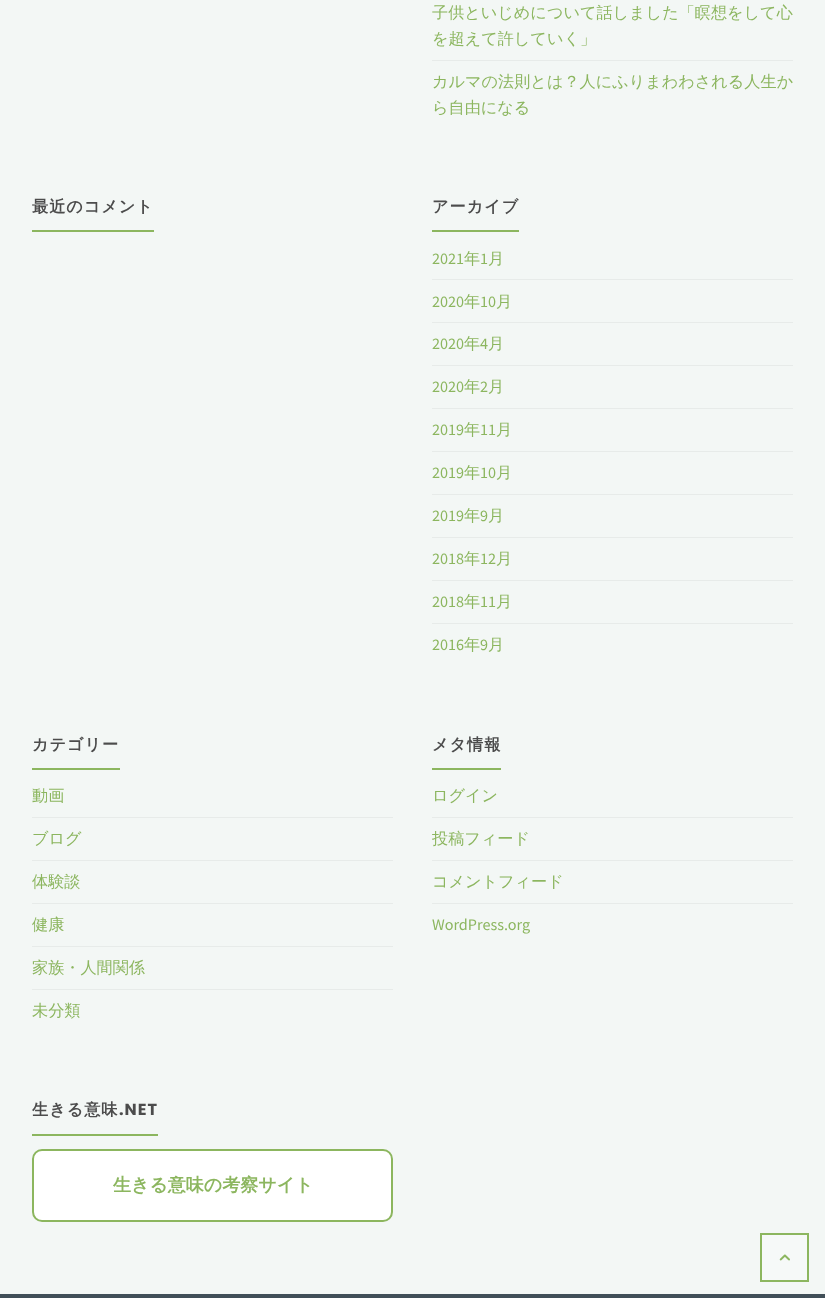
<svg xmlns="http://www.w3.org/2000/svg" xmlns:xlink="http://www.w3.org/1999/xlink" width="825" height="1298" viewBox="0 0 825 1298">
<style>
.cls-1{font:500 16.15px WenQuanYi Zen Hei;fill:#8cb65f}
.cls-2{font:bold 16.15px WenQuanYi Zen Hei;letter-spacing:1px;fill:#4c4c4c}
.cls-3{font:16.15px Source Sans Pro;fill:#8cb65f}
.cls-4{font:bold 16.15px Poppins;letter-spacing:1px;fill:#4c4c4c}
.cls-5{font:bold 18px WenQuanYi Zen Hei;fill:#8cb65f}
</style>
<rect width="100%" height="100%" fill="#f3f7f5"/>
<rect fill="#e7ebe9" x="432" y="60" width="361" height="1"/>
<rect fill="#8cb65f" x="32" y="230" width="122" height="2"/>
<rect fill="#8cb65f" x="432" y="230" width="87" height="2"/>
<rect fill="#e7ebe9" x="432" y="279" width="361" height="1"/>
<rect fill="#e7ebe9" x="432" y="322" width="361" height="1"/>
<rect fill="#e7ebe9" x="432" y="365" width="361" height="1"/>
<rect fill="#e7ebe9" x="432" y="408" width="361" height="1"/>
<rect fill="#e7ebe9" x="432" y="451" width="361" height="1"/>
<rect fill="#e7ebe9" x="432" y="494" width="361" height="1"/>
<rect fill="#e7ebe9" x="432" y="537" width="361" height="1"/>
<rect fill="#e7ebe9" x="432" y="580" width="361" height="1"/>
<rect fill="#e7ebe9" x="432" y="623" width="361" height="1"/>
<rect fill="#8cb65f" x="32" y="768" width="88" height="2"/>
<rect fill="#e7ebe9" x="32" y="817" width="361" height="1"/>
<rect fill="#e7ebe9" x="32" y="860" width="361" height="1"/>
<rect fill="#e7ebe9" x="32" y="903" width="361" height="1"/>
<rect fill="#e7ebe9" x="32" y="946" width="361" height="1"/>
<rect fill="#e7ebe9" x="32" y="989" width="361" height="1"/>
<rect fill="#8cb65f" x="432" y="768" width="69" height="2"/>
<rect fill="#e7ebe9" x="432" y="817" width="361" height="1"/>
<rect fill="#e7ebe9" x="432" y="860" width="361" height="1"/>
<rect fill="#e7ebe9" x="432" y="903" width="361" height="1"/>
<rect fill="#8cb65f" x="32" y="1134" width="126" height="2"/>
<rect fill="#ffffff" stroke="#8cb65e" stroke-width="2" x="33" y="1150" width="359" height="71" rx="9"/>
<rect fill="#414f58" x="0" y="1294" width="825" height="4"/>
<rect fill="#f6f9f8" stroke="#8cb65f" stroke-width="2" x="761" y="1234" width="47" height="47"/>
<image xlink:href="image0.png" x="779" y="1254" width="11" height="7"/>
<text class="cls-1"><tspan x="432" y="18">子供といじめについて話しました「瞑想をして心</tspan><tspan x="432" y="44">を超えて許していく」</tspan></text>
<text class="cls-1"><tspan x="432" y="87">カルマの法則とは？人にふりまわわされる人生か</tspan><tspan x="432" y="113">ら自由になる</tspan></text>
<text class="cls-2" x="32" y="212">最近のコメント</text>
<text class="cls-2" x="432" y="212">アーカイブ</text>
<text class="cls-3" x="432" y="264">2021</text>
<text class="cls-1" x="464" y="264">年</text>
<text class="cls-3" x="480" y="264">1</text>
<text class="cls-1" x="488" y="264">月</text>
<text class="cls-3" x="432" y="307">2020</text>
<text class="cls-1" x="464" y="307">年</text>
<text class="cls-3" x="480" y="307">10</text>
<text class="cls-1" x="496" y="307">月</text>
<text class="cls-3" x="432" y="349">2020</text>
<text class="cls-1" x="464" y="349">年</text>
<text class="cls-3" x="480" y="349">4</text>
<text class="cls-1" x="488" y="349">月</text>
<text class="cls-3" x="432" y="392">2020</text>
<text class="cls-1" x="464" y="392">年</text>
<text class="cls-3" x="480" y="392">2</text>
<text class="cls-1" x="488" y="392">月</text>
<text class="cls-3" x="432" y="435">2019</text>
<text class="cls-1" x="464" y="435">年</text>
<text class="cls-3" x="480" y="435">11</text>
<text class="cls-1" x="496" y="435">月</text>
<text class="cls-3" x="432" y="478">2019</text>
<text class="cls-1" x="464" y="478">年</text>
<text class="cls-3" x="480" y="478">10</text>
<text class="cls-1" x="496" y="478">月</text>
<text class="cls-3" x="432" y="521">2019</text>
<text class="cls-1" x="464" y="521">年</text>
<text class="cls-3" x="480" y="521">9</text>
<text class="cls-1" x="488" y="521">月</text>
<text class="cls-3" x="432" y="564">2018</text>
<text class="cls-1" x="464" y="564">年</text>
<text class="cls-3" x="480" y="564">12</text>
<text class="cls-1" x="496" y="564">月</text>
<text class="cls-3" x="432" y="607">2018</text>
<text class="cls-1" x="464" y="607">年</text>
<text class="cls-3" x="480" y="607">11</text>
<text class="cls-1" x="496" y="607">月</text>
<text class="cls-3" x="432" y="650">2016</text>
<text class="cls-1" x="464" y="650">年</text>
<text class="cls-3" x="480" y="650">9</text>
<text class="cls-1" x="488" y="650">月</text>
<text class="cls-2" x="32" y="750">カテゴリー</text>
<text class="cls-1" x="32" y="801">動画</text>
<text class="cls-1" x="32" y="844">ブログ</text>
<text class="cls-1" x="32" y="887">体験談</text>
<text class="cls-1" x="32" y="930">健康</text>
<text class="cls-1" x="32" y="973">家族・人間関係</text>
<text class="cls-1" x="32" y="1016">未分類</text>
<text class="cls-2" x="432" y="750">メタ情報</text>
<text class="cls-1" x="432" y="801">ログイン</text>
<text class="cls-1" x="432" y="844">投稿フィード</text>
<text class="cls-1" x="432" y="887">コメントフィード</text>
<text class="cls-3" x="432" y="930">WordPress.org</text>
<text class="cls-2" x="32" y="1115">生きる意味</text>
<text class="cls-4" x="119" y="1115">.NET</text>
<text class="cls-5" x="113" y="1191">生きる意味の考察サイト</text>
</svg>
